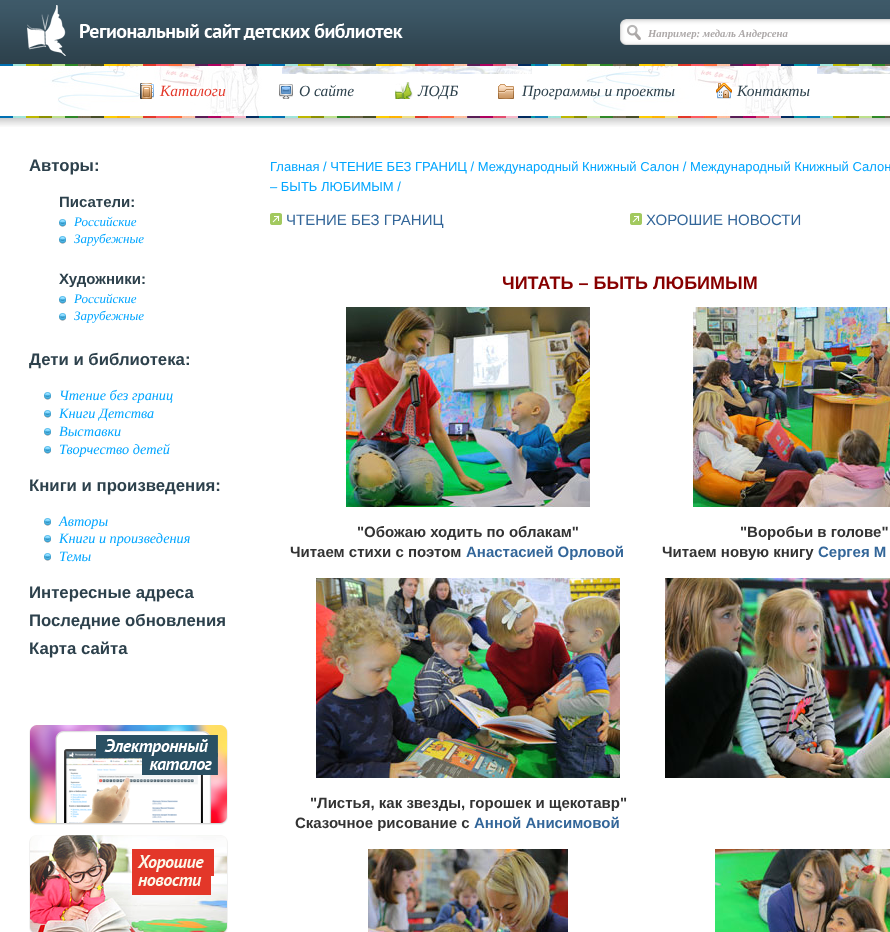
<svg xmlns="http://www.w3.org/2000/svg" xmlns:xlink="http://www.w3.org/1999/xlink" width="890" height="932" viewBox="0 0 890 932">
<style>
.cls-1{font:italic bold 10.75px Liberation Serif;fill:#ada9a9}
.cls-2{font:italic 15.5px Liberation Serif;fill:#e33729}
.cls-3{font:italic 15.5px Liberation Serif;fill:#2d414c}
.cls-4{font:bold 16.75px Liberation Sans;fill:#2d414c}
.cls-5{font:bold 15px Liberation Sans;fill:#2d414c}
.cls-6{font:italic 13px Liberation Serif;fill:#00a5ff}
.cls-7{font:italic 14.25px Liberation Serif;fill:#00a5ff}
.cls-8{font:13px Liberation Sans;fill:#00a5ff}
.cls-9{font:15px Liberation Sans;fill:#336699}
.cls-10{font:bold 18px Liberation Sans;fill:#870000}
.cls-11{font:bold 15px Liberation Sans;fill:#333333}
.cls-12{font:bold 15px Liberation Sans;fill:#336699}
</style>
<defs>
<clipPath id="clip1"><rect x="648" y="27" width="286" height="12"/></clipPath>
</defs>
<rect width="100%" height="100%" fill="#ffffff"/>
<image xlink:href="image0.png" x="0" y="0" width="890" height="64"/>
<image xlink:href="image1.png" x="27" y="5" width="376" height="51"/>
<image xlink:href="image2.png" x="620" y="19" width="270" height="26"/>
<image xlink:href="image3.png" x="0" y="64" width="890" height="63"/>
<image xlink:href="image4.png" x="140" y="83" width="14" height="16"/>
<image xlink:href="image5.png" x="279" y="84" width="14" height="15"/>
<image xlink:href="image6.png" x="395" y="82" width="18" height="17"/>
<image xlink:href="image7.png" x="498" y="84" width="16" height="15"/>
<image xlink:href="image8.png" x="716" y="83" width="16" height="16"/>
<image xlink:href="image9.png" x="59" y="219" width="7" height="8"/>
<image xlink:href="image9.png" x="59" y="236" width="7" height="8"/>
<image xlink:href="image9.png" x="59" y="296" width="7" height="8"/>
<image xlink:href="image9.png" x="59" y="313" width="7" height="8"/>
<image xlink:href="image9.png" x="44" y="392" width="7" height="8"/>
<image xlink:href="image9.png" x="44" y="410" width="7" height="8"/>
<image xlink:href="image9.png" x="44" y="428" width="7" height="8"/>
<image xlink:href="image9.png" x="44" y="446" width="7" height="8"/>
<image xlink:href="image9.png" x="44" y="518" width="7" height="8"/>
<image xlink:href="image9.png" x="44" y="535" width="7" height="8"/>
<image xlink:href="image9.png" x="44" y="553" width="7" height="8"/>
<image xlink:href="image10.png" x="29" y="725" width="199" height="100"/>
<image xlink:href="image11.png" x="29" y="835" width="199" height="97"/>
<image xlink:href="image12.png" x="270" y="213" width="12" height="12"/>
<image xlink:href="image12.png" x="630" y="213" width="12" height="12"/>
<image xlink:href="image13.png" x="346" y="307" width="244" height="200"/>
<image xlink:href="image14.png" x="693" y="307" width="197" height="200"/>
<image xlink:href="image15.png" x="665" y="578" width="225" height="200"/>
<image xlink:href="image16.png" x="316" y="578" width="304" height="200"/>
<image xlink:href="image17.png" x="368" y="849" width="200" height="83"/>
<image xlink:href="image18.png" x="715" y="849" width="175" height="83"/>
<g clip-path="url(#clip1)">
<text class="cls-1" x="648" y="37">Например: медаль Андерсена</text>
</g>
<text class="cls-2" x="160" y="96">Каталоги</text>
<text class="cls-3" x="299" y="96">О сайте</text>
<text class="cls-3" x="418" y="96">ЛОДБ</text>
<text class="cls-3" x="522" y="96">Программы и проекты</text>
<text class="cls-3" x="737" y="96">Контакты</text>
<text class="cls-4" x="29" y="171">Авторы:</text>
<text class="cls-5" x="59" y="207">Писатели:</text>
<text class="cls-6"><tspan x="74" y="226">Российские</tspan><tspan x="74" y="243">Зарубежные</tspan></text>
<text class="cls-5" x="59" y="284">Художники:</text>
<text class="cls-6"><tspan x="74" y="303">Российские</tspan><tspan x="74" y="320">Зарубежные</tspan></text>
<text class="cls-4" x="29" y="365">Дети и библиотека:</text>
<text class="cls-7"><tspan x="59" y="400">Чтение без границ</tspan><tspan x="59" y="418">Книги Детства</tspan><tspan x="59" y="436">Выставки</tspan><tspan x="59" y="454">Творчество детей</tspan></text>
<text class="cls-4" x="29" y="491">Книги и произведения:</text>
<text class="cls-7"><tspan x="59" y="526">Авторы</tspan><tspan x="59" y="543">Книги и произведения</tspan><tspan x="59" y="561">Темы</tspan></text>
<text class="cls-4"><tspan x="29" y="598">Интересные адреса</tspan><tspan x="29" y="626">Последние обновления</tspan><tspan x="29" y="654">Карта сайта</tspan></text>
<text class="cls-8"><tspan x="270" y="171">Главная / ЧТЕНИЕ БЕЗ ГРАНИЦ / Международный Книжный Салон / Международный Книжный Салон</tspan><tspan x="270" y="191">– БЫТЬ ЛЮБИМЫМ /</tspan></text>
<text class="cls-9" x="286" y="225">ЧТЕНИЕ БЕЗ ГРАНИЦ</text>
<text class="cls-9" x="646" y="225">ХОРОШИЕ НОВОСТИ</text>
<text class="cls-10" x="502" y="289">ЧИТАТЬ – БЫТЬ ЛЮБИМЫМ</text>
<text class="cls-11" x="357" y="537">"Обожаю ходить по облакам"</text>
<text class="cls-11" x="290" y="557">Читаем стихи с поэтом</text>
<text class="cls-12" x="466" y="557">Анастасией Орловой</text>
<text class="cls-11" x="740" y="537">"Воробьи в голове"</text>
<text class="cls-11" x="662" y="557">Читаем новую книгу</text>
<text class="cls-12" x="818" y="557">Сергея М</text>
<text class="cls-11" x="310" y="808">"Листья, как звезды, горошек и щекотавр"</text>
<text class="cls-11" x="295" y="828">Сказочное рисование с</text>
<text class="cls-12" x="474" y="828">Анной Анисимовой</text>
</svg>
